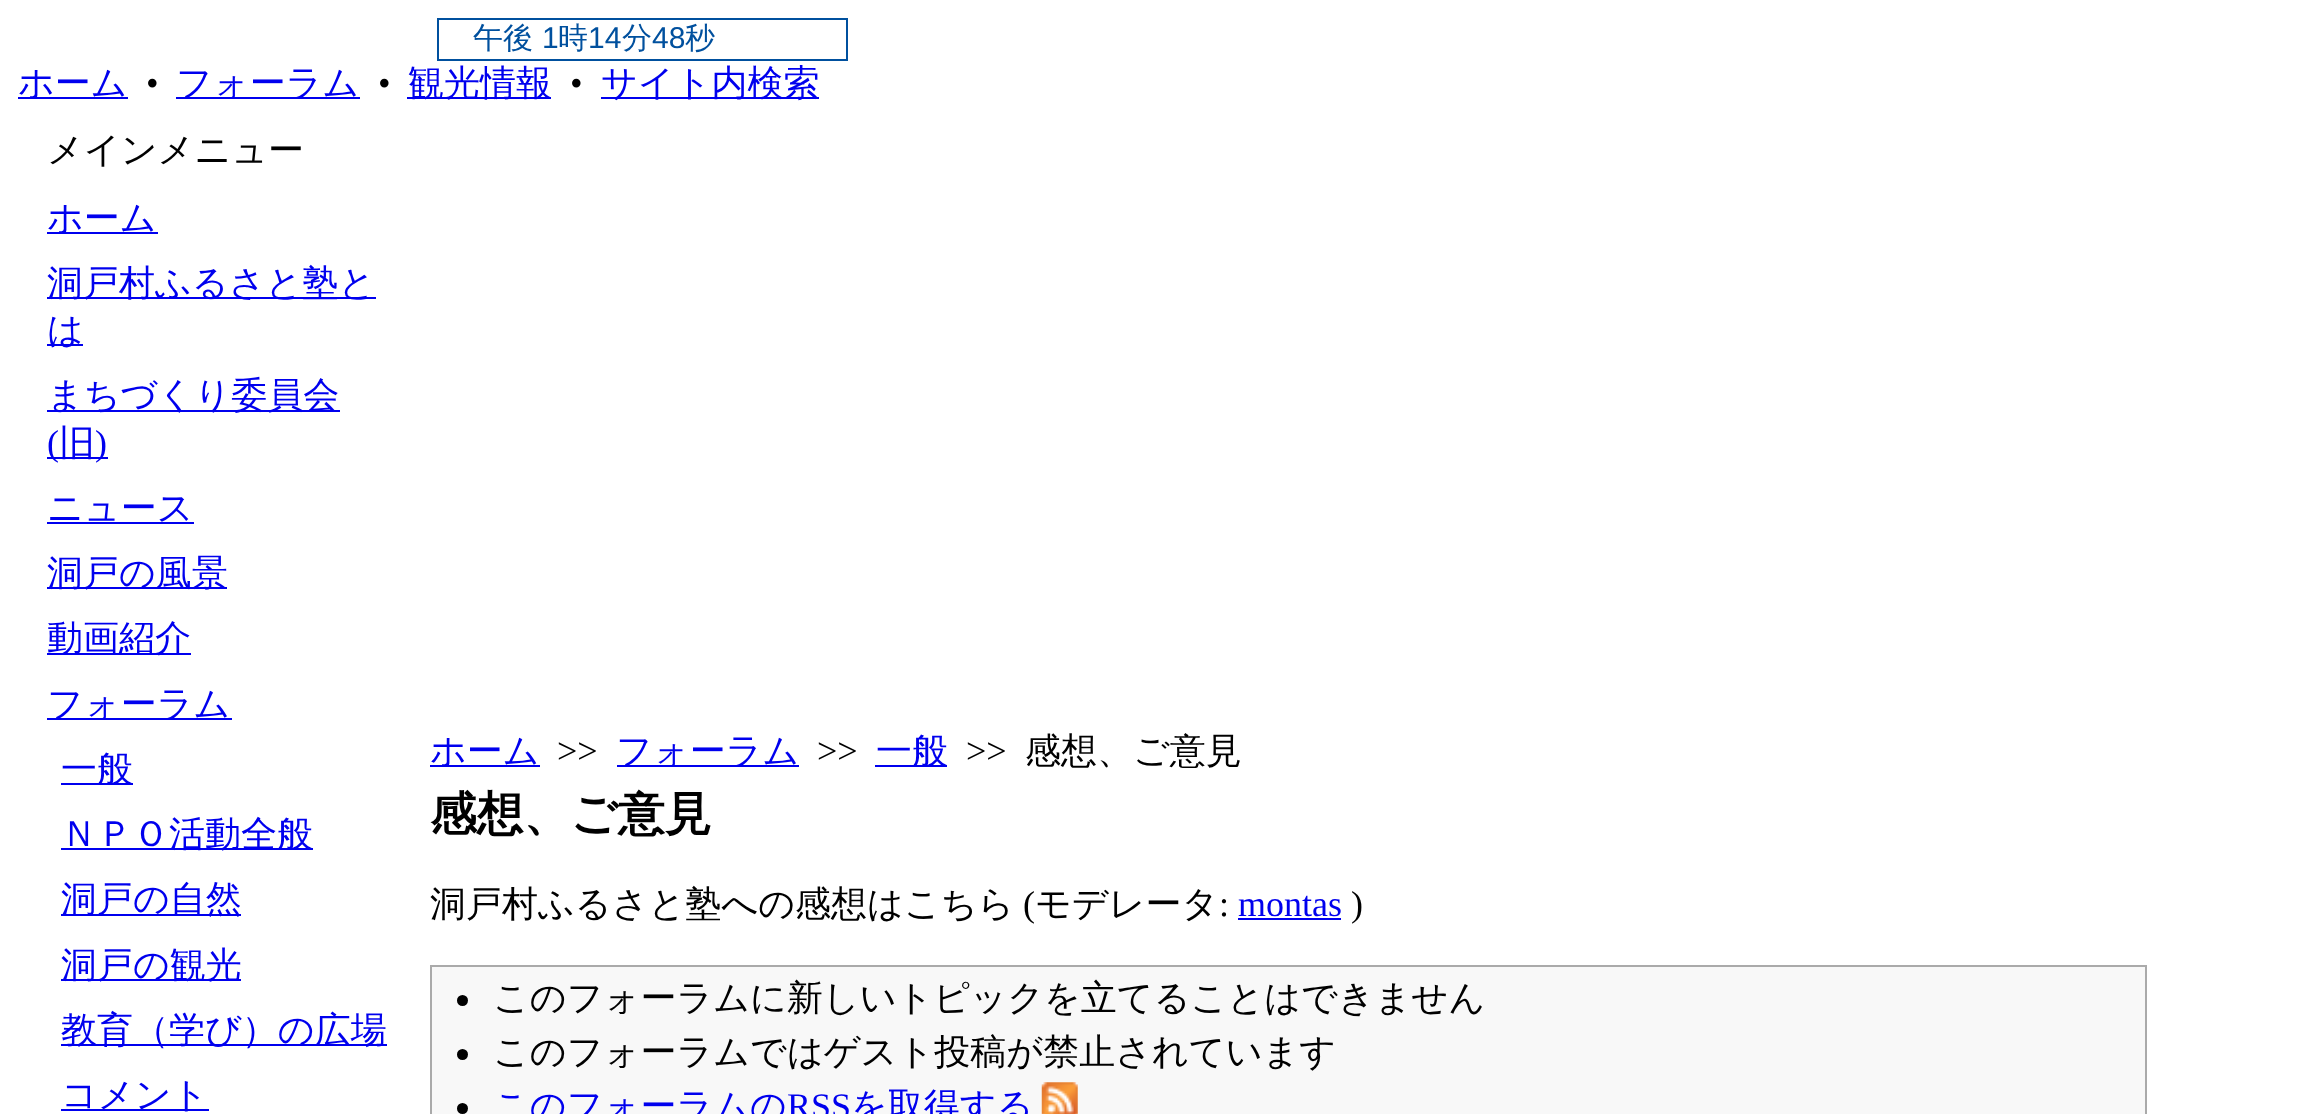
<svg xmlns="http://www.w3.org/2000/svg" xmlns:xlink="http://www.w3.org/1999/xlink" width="2302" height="1114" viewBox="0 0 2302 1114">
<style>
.cls-1{font:500 30px WenQuanYi Zen Hei;fill:#00509e}
.cls-2{font:30px Liberation Sans;fill:#00509e}
.cls-3{font:500 36px WenQuanYi Zen Hei;fill:#0000ee}
.cls-4{font:36px Liberation Serif;fill:#000000}
.cls-5{font:500 36px WenQuanYi Zen Hei;fill:#000000}
.cls-6{font:36px Liberation Serif;fill:#0000ee}
.cls-7{font:bold 46.75px WenQuanYi Zen Hei;fill:#000000}
</style>
<rect width="100%" height="100%" fill="#ffffff"/>
<rect fill="none" stroke="#00509e" stroke-width="2" x="438" y="19" width="409" height="41"/>
<rect fill="#0000ee" x="18" y="97" width="110" height="2"/>
<rect fill="#0000ee" x="176" y="97" width="184" height="2"/>
<rect fill="#0000ee" x="407" y="97" width="144" height="2"/>
<rect fill="#0000ee" x="601" y="97" width="218" height="2"/>
<rect fill="#0000ee" x="47" y="232" width="111" height="2"/>
<rect fill="#0000ee" x="47" y="297" width="329" height="2"/>
<rect fill="#0000ee" x="47" y="344" width="36" height="2"/>
<rect fill="#0000ee" x="47" y="410" width="293" height="2"/>
<rect fill="#0000ee" x="47" y="457" width="61" height="2"/>
<rect fill="#0000ee" x="47" y="522" width="147" height="2"/>
<rect fill="#0000ee" x="47" y="587" width="180" height="2"/>
<rect fill="#0000ee" x="47" y="653" width="144" height="2"/>
<rect fill="#0000ee" x="47" y="718" width="185" height="2"/>
<rect fill="#0000ee" x="61" y="783" width="72" height="2"/>
<rect fill="#0000ee" x="61" y="848" width="252" height="2"/>
<rect fill="#0000ee" x="61" y="914" width="180" height="2"/>
<rect fill="#0000ee" x="61" y="979" width="180" height="2"/>
<rect fill="#0000ee" x="61" y="1044" width="326" height="2"/>
<rect fill="#0000ee" x="61" y="1109" width="148" height="2"/>
<rect fill="#0000ee" x="430" y="765" width="110" height="2"/>
<rect fill="#0000ee" x="617" y="765" width="182" height="2"/>
<rect fill="#0000ee" x="875" y="765" width="72" height="2"/>
<rect fill="#0000ee" x="1238" y="918" width="103" height="2"/>
<rect fill="#f8f8f8" stroke="#aaaaaa" stroke-width="2" x="431" y="966" width="1715" height="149"/>
<circle fill="#000000" cx="462.5" cy="1000.5" r="5.5"/>
<circle fill="#000000" cx="462.5" cy="1054.5" r="5.5"/>
<circle fill="#000000" cx="462.5" cy="1108.5" r="5.5"/>
<image xlink:href="image0.png" x="1041" y="1082" width="37" height="32"/>
<text class="cls-1" x="473" y="48">午後</text>
<text class="cls-2" x="542" y="48">1</text>
<text class="cls-1" x="558" y="48">時</text>
<text class="cls-2" x="588" y="48">14</text>
<text class="cls-1" x="622" y="48">分</text>
<text class="cls-2" x="652" y="48">48</text>
<text class="cls-1" x="685" y="48">秒</text>
<text class="cls-3" x="18" y="95">ホーム</text>
<text class="cls-4" x="146" y="95">•</text>
<text class="cls-3" x="176" y="95">フォーラム</text>
<text class="cls-4" x="378" y="95">•</text>
<text class="cls-3" x="408" y="95">観光情報</text>
<text class="cls-4" x="570" y="95">•</text>
<text class="cls-3" x="601" y="95">サイト内検索</text>
<text class="cls-5" x="47" y="162">メインメニュー</text>
<text class="cls-3"><tspan x="47" y="230">ホーム</tspan><tspan x="47" y="295">洞戸村ふるさと塾と</tspan><tspan x="47" y="342">は</tspan><tspan x="47" y="407">まちづくり委員会</tspan></text>
<text class="cls-6" x="47" y="455">(</text>
<text class="cls-3" x="59" y="455">旧</text>
<text class="cls-6" x="95" y="455">)</text>
<text class="cls-3"><tspan x="47" y="520">ニュース</tspan><tspan x="47" y="585">洞戸の風景</tspan><tspan x="47" y="650">動画紹介</tspan><tspan x="47" y="716">フォーラム</tspan></text>
<text class="cls-3"><tspan x="61" y="781">一般</tspan><tspan x="61" y="846">ＮＰＯ活動全般</tspan><tspan x="61" y="911">洞戸の自然</tspan><tspan x="61" y="977">洞戸の観光</tspan><tspan x="61" y="1042">教育（学び）の広場</tspan><tspan x="61" y="1107">コメント</tspan></text>
<text class="cls-3" x="430" y="763">ホーム</text>
<text class="cls-4" x="557" y="763">&gt;&gt;</text>
<text class="cls-3" x="616" y="763">フォーラム</text>
<text class="cls-4" x="817" y="763">&gt;&gt;</text>
<text class="cls-3" x="876" y="763">一般</text>
<text class="cls-4" x="966" y="763">&gt;&gt;</text>
<text class="cls-5" x="1025" y="763">感想、ご意見</text>
<text class="cls-7" x="430" y="830">感想、ご意見</text>
<text class="cls-5" x="430" y="916">洞戸村ふるさと塾への感想はこちら</text>
<text class="cls-4" x="1023" y="916">(</text>
<text class="cls-5" x="1035" y="916">モデレータ</text>
<text class="cls-4" x="1219" y="916">:</text>
<text class="cls-6" x="1238" y="916">montas</text>
<text class="cls-4" x="1351" y="916">)</text>
<text class="cls-5"><tspan x="493" y="1010">このフォーラムに新しいトピックを立てることはできません</tspan><tspan x="493" y="1064">このフォーラムではゲスト投稿が禁止されています</tspan></text>
<text class="cls-3" x="493" y="1118">このフォーラムの</text>
<text class="cls-6" x="787" y="1118">RSS</text>
<text class="cls-3" x="851" y="1118">を取得する</text>
</svg>
